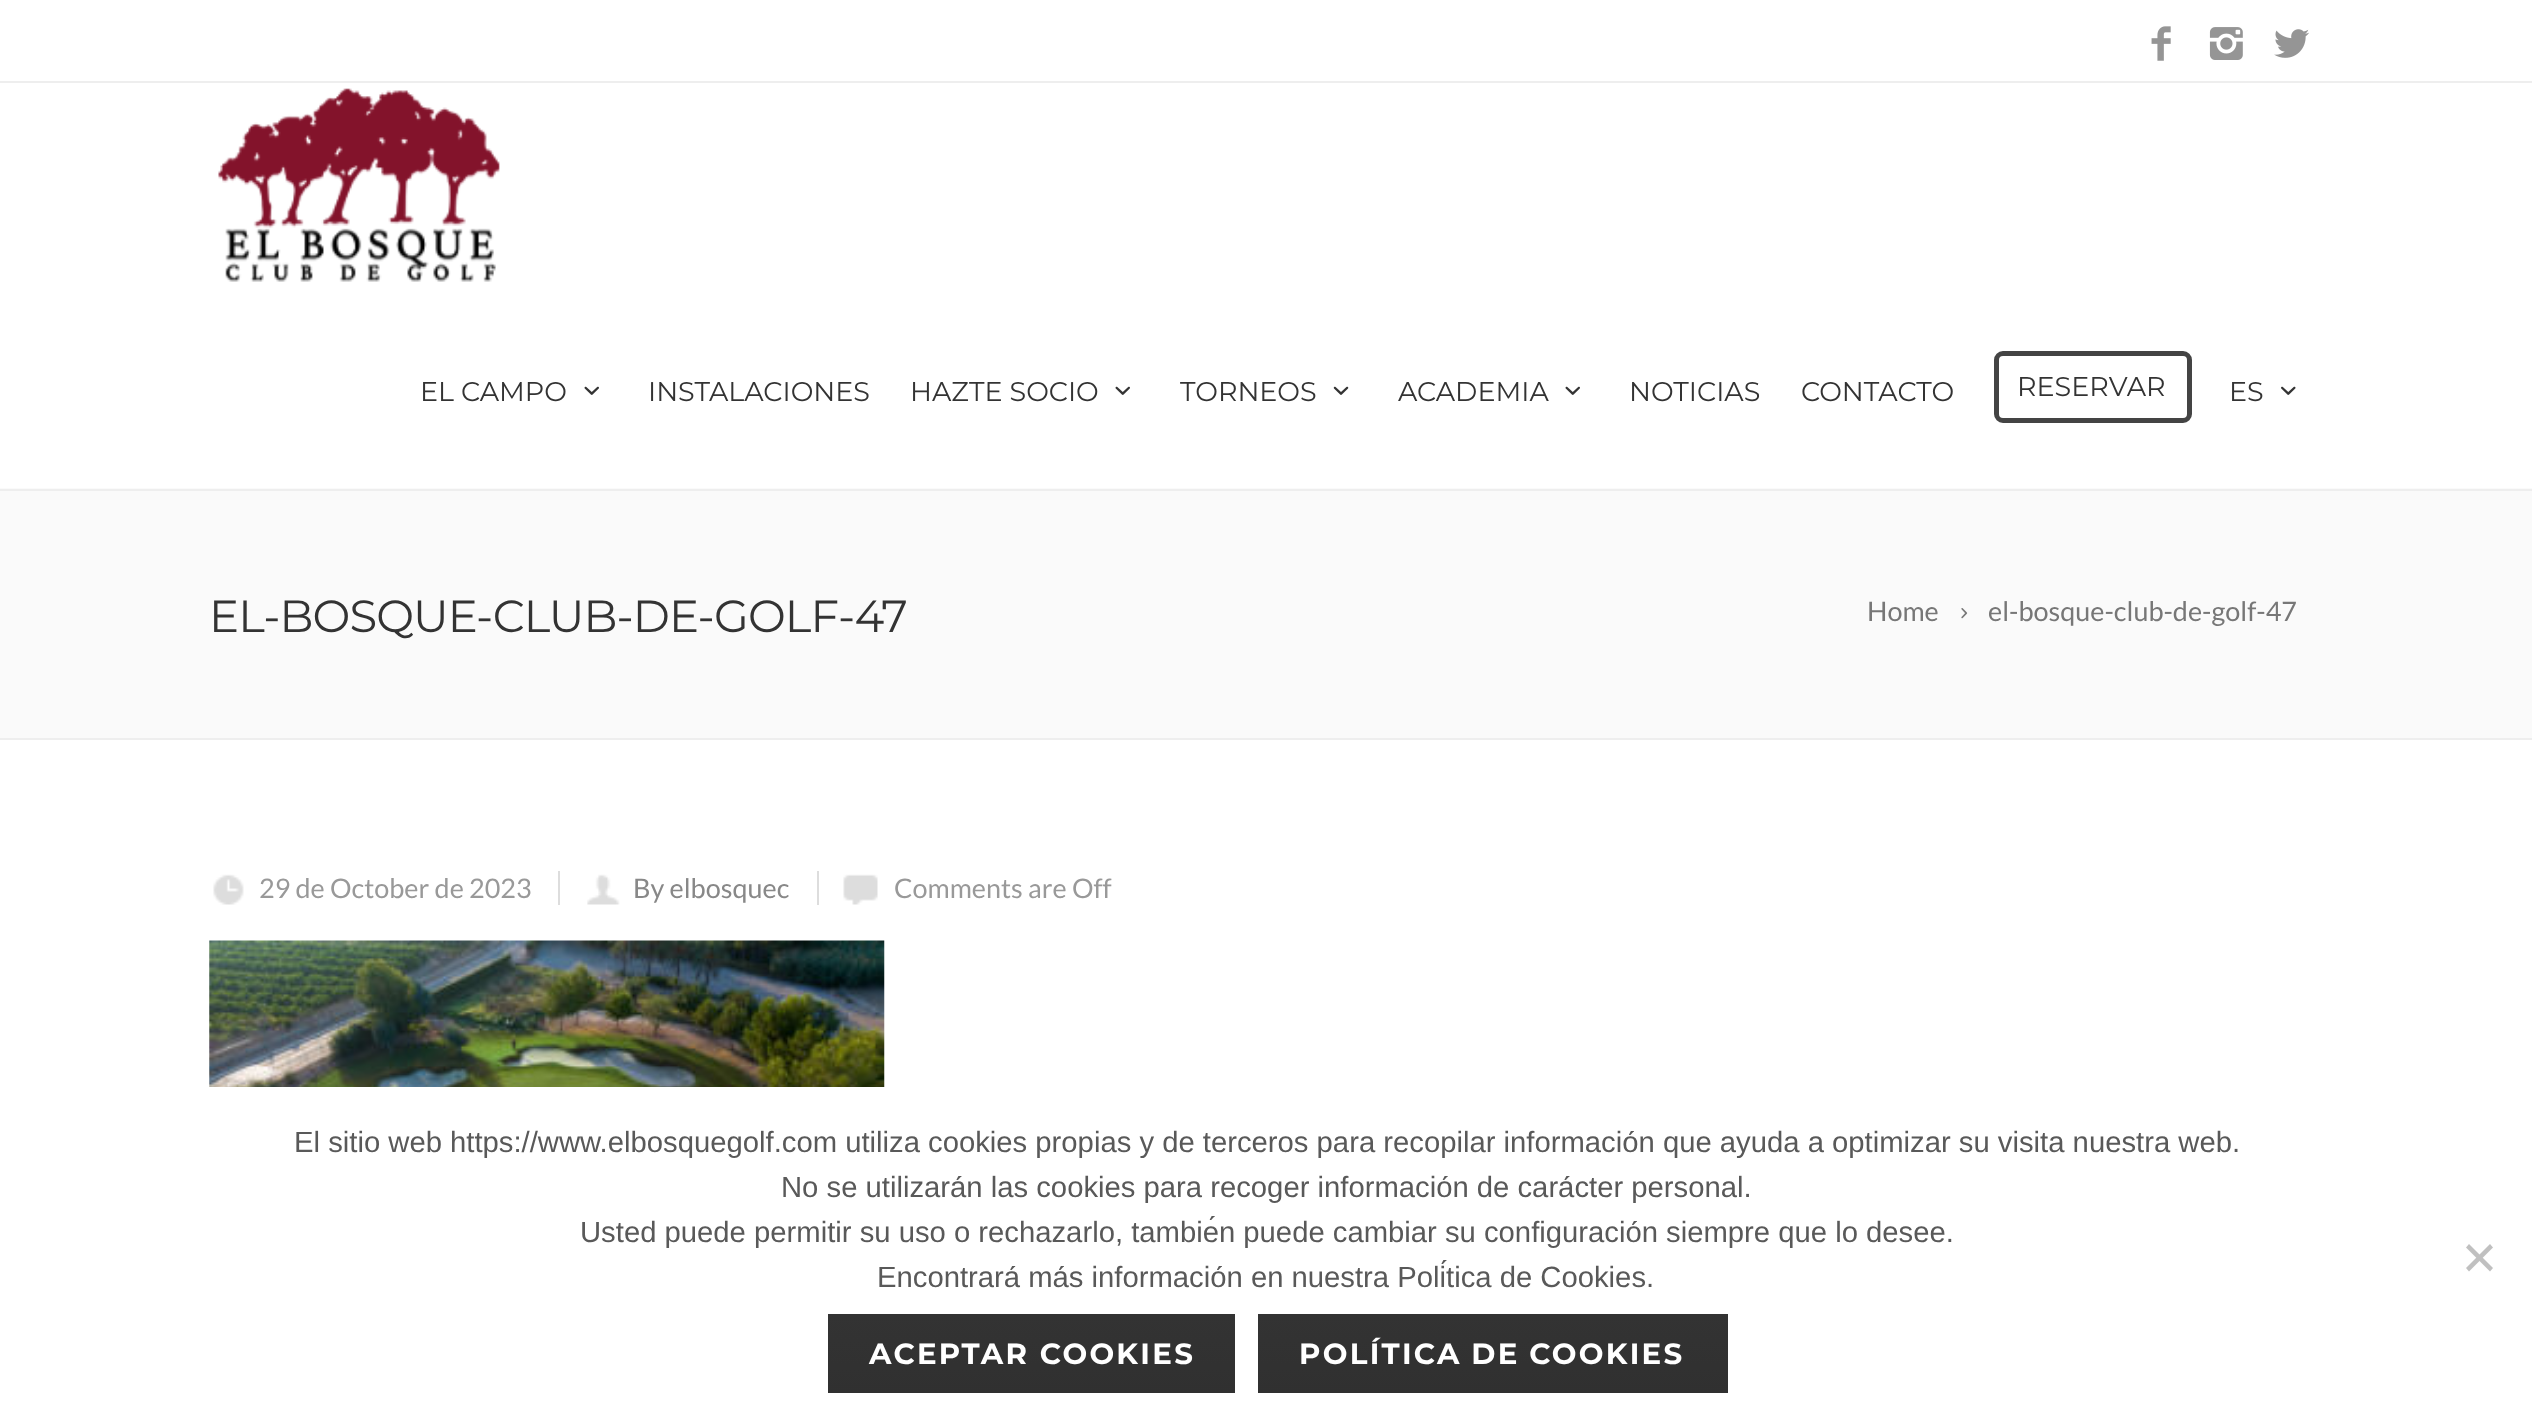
<svg xmlns="http://www.w3.org/2000/svg" xmlns:xlink="http://www.w3.org/1999/xlink" width="2532" height="1425" viewBox="0 0 2532 1425">
<style>
.cls-1{font:27px Montserrat;fill:#333333}
.cls-2{font:45px Montserrat;letter-spacing:-0.9px;fill:#333333}
.cls-3{font:27px Lato;fill:#777777}
.cls-4{font:27px Lato;fill:#999999}
.cls-5{font:27px Lato;fill:#888888}
.cls-6{font:29.25px Liberation Sans;fill:#595959}
.cls-7{font:bold 29.25px Montserrat;letter-spacing:2.3px;fill:#ffffff}
</style>
<defs>
<linearGradient id="g1" gradientUnits="userSpaceOnUse" x1="1032" y1="1314" x2="1032" y2="1393"><stop offset="0" stop-color="#333333"/><stop offset="1" stop-color="#303030"/></linearGradient>
<linearGradient id="g2" gradientUnits="userSpaceOnUse" x1="1493" y1="1314" x2="1493" y2="1393"><stop offset="0" stop-color="#333333"/><stop offset="1" stop-color="#303030"/></linearGradient>
</defs>
<rect width="100%" height="100%" fill="#ffffff"/>
<rect fill="#fafafa" x="0" y="488" width="2532" height="250"/>
<rect fill="none" stroke="#eeeeee" stroke-width="2" x="-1" y="-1" width="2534" height="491"/>
<rect fill="#eeeeee" x="0" y="81" width="2532" height="2"/>
<image xlink:href="image0.png" x="2151" y="26" width="20" height="35"/>
<image xlink:href="image1.png" x="2209" y="27" width="34" height="33"/>
<image xlink:href="image2.png" x="2274" y="29" width="35" height="29"/>
<image xlink:href="image3.png" x="218" y="88" width="282" height="194"/>
<image xlink:href="image4.png" x="584" y="386" width="15" height="9"/>
<image xlink:href="image4.png" x="1115" y="386" width="15" height="9"/>
<image xlink:href="image5.png" x="1333" y="386" width="16" height="9"/>
<image xlink:href="image4.png" x="1565" y="386" width="15" height="9"/>
<rect fill="none" stroke="#444444" stroke-width="5" x="1996.5" y="353.5" width="193" height="67" rx="6.5"/>
<image xlink:href="image6.png" x="2281" y="386" width="15" height="9"/>
<rect fill="#eeeeee" x="0" y="738" width="2532" height="2"/>
<image xlink:href="image7.png" x="1961" y="608" width="7" height="11"/>
<image xlink:href="image8.png" x="213" y="874" width="31" height="31"/>
<rect fill="#dddddd" x="558" y="871" width="2" height="34"/>
<image xlink:href="image9.png" x="587" y="874" width="33" height="31"/>
<rect fill="#dddddd" x="817" y="871" width="2" height="34"/>
<image xlink:href="image10.png" x="843" y="874" width="35" height="31"/>
<image xlink:href="image11.png" x="209" y="940" width="676" height="147"/>
<path fill="#c0c0c0" d="M2490 1244L2493 1247.5L2469 1271.5L2466 1268Z"/>
<path fill="#c0c0c0" d="M2466 1247.5L2469 1244L2493 1268L2490 1271.5Z"/>
<rect fill="url(#g1)" x="828" y="1314" width="407" height="79"/>
<rect fill="url(#g2)" x="1258" y="1314" width="470" height="79"/>
<text class="cls-1" x="420" y="401">EL CAMPO</text>
<text class="cls-1" x="648" y="401">INSTALACIONES</text>
<text class="cls-1" x="910" y="401">HAZTE SOCIO</text>
<text class="cls-1" x="1180" y="401">TORNEOS</text>
<text class="cls-1" x="1398" y="401">ACADEMIA</text>
<text class="cls-1" x="1629" y="401">NOTICIAS</text>
<text class="cls-1" x="1801" y="401">CONTACTO</text>
<text class="cls-1" x="2017" y="396">RESERVAR</text>
<text class="cls-1" x="2229" y="401">ES</text>
<text class="cls-2" x="209" y="632">EL-BOSQUE-CLUB-DE-GOLF-47</text>
<text class="cls-3" x="1867" y="621">Home</text>
<text class="cls-3" x="1988" y="621">el-bosque-club-de-golf-47</text>
<text class="cls-4" x="259" y="898">29 de October de 2023</text>
<text class="cls-5" x="633" y="898">By elbosquec</text>
<text class="cls-4" x="894" y="898">Comments are Off</text>
<text class="cls-6" x="294" y="1152">El sitio web https://www.elbosquegolf.com utiliza cookies propias y de terceros para recopilar información que ayuda a optimizar su visita nuestra web.</text>
<text class="cls-6" x="781" y="1197">No se utilizarán las cookies para recoger información de carácter personal.</text>
<text class="cls-6" x="580" y="1242">Usted puede permitir su uso o rechazarlo, también puede cambiar su configuración siempre que lo desee.</text>
<text class="cls-6" x="877" y="1287">Encontrará más información en nuestra Política de Cookies.</text>
<text class="cls-7" x="869" y="1364">ACEPTAR COOKIES</text>
<text class="cls-7" x="1299" y="1364" word-spacing="-1">POLÍTICA DE COOKIES</text>
</svg>
